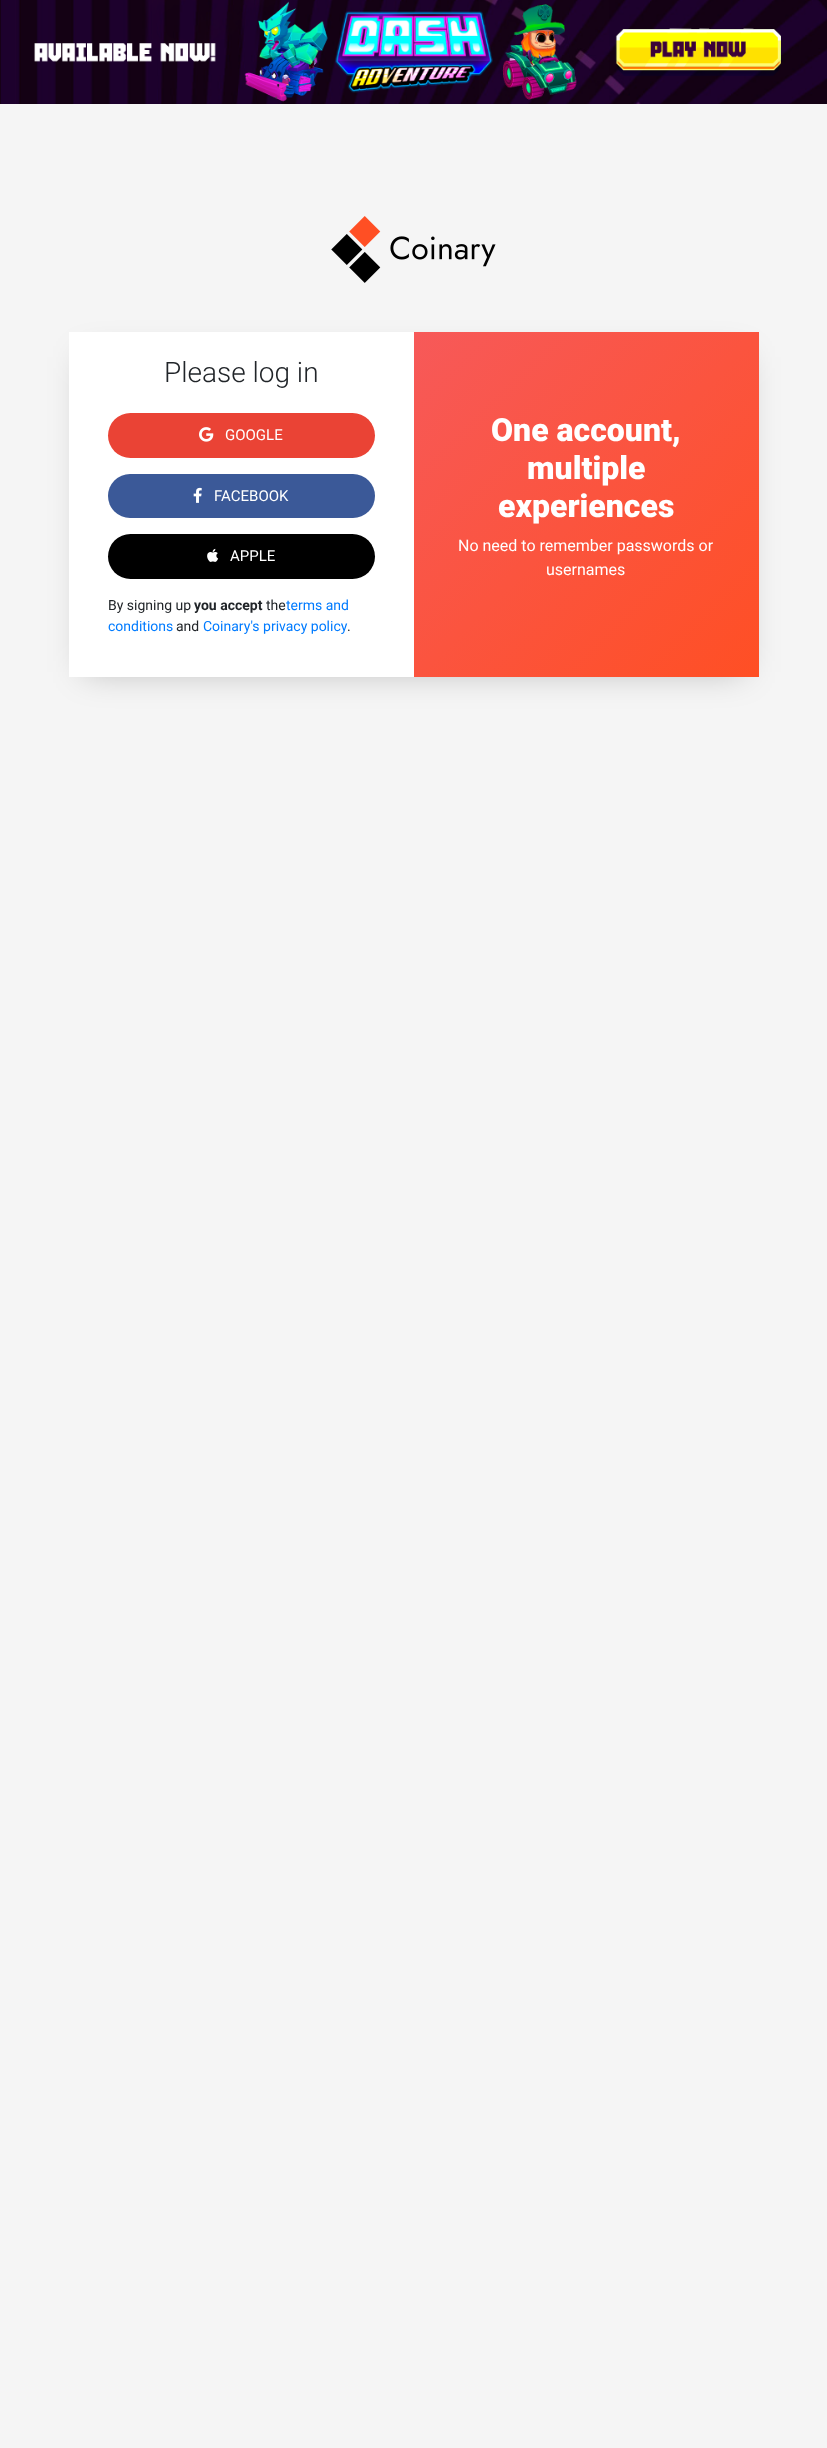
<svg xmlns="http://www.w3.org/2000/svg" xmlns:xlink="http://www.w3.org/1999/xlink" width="827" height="2448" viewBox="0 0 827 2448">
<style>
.cls-1{font:300 28px Roboto;fill:#212529}
.cls-2{font:15px Roboto;fill:#ffffff}
.cls-3{font:14px Roboto;fill:#212529}
.cls-4{font:bold 14px Roboto;fill:#212529}
.cls-5{font:14px Roboto;fill:#007bff}
.cls-6{font:900 32px Roboto;fill:#ffffff}
.cls-7{font:16px Roboto;fill:#ffffff}
</style>
<defs>
<linearGradient id="g1" gradientUnits="userSpaceOnUse" x1="414" y1="332" x2="759" y2="677"><stop offset="0" stop-color="#f75959"/><stop offset="1" stop-color="#ff4f24"/></linearGradient>
</defs>
<rect width="100%" height="100%" fill="#f5f5f5"/>
<image xlink:href="image0.png" x="0" y="0" width="827" height="104"/>
<image xlink:href="image1.png" x="331" y="216" width="165" height="67"/>
<rect fill="#000000" fill-opacity="0.24" filter="blur(17px)" x="84" y="357" width="660" height="315"/>
<rect fill="#ffffff" x="69" y="332" width="345" height="345"/>
<rect fill="#ea4335" x="108" y="413" width="267" height="45" rx="22.5"/>
<image xlink:href="image2.png" x="199" y="427" width="15" height="15"/>
<rect fill="#3b5998" x="108" y="474" width="267" height="44" rx="22"/>
<image xlink:href="image3.png" x="193" y="487" width="9" height="16"/>
<rect fill="#000000" x="108" y="534" width="267" height="45" rx="22.5"/>
<image xlink:href="image4.png" x="207" y="548" width="12" height="14"/>
<rect fill="url(#g1)" x="414" y="332" width="345" height="345"/>
<text class="cls-1" x="164" y="382">Please log in</text>
<text class="cls-2" x="225" y="440">GOOGLE</text>
<text class="cls-2" x="214" y="501">FACEBOOK</text>
<text class="cls-2" x="230" y="561">APPLE</text>
<text class="cls-3" x="108" y="610">By signing up</text>
<text class="cls-4" x="194" y="610">you accept</text>
<text class="cls-3" x="266" y="610">the</text>
<text class="cls-5" x="286" y="610">terms and</text>
<text class="cls-5" x="108" y="631">conditions</text>
<text class="cls-3" x="176" y="631">and</text>
<text class="cls-5" x="203" y="631">Coinary's privacy policy</text>
<text class="cls-3" x="347" y="631">.</text>
<text class="cls-6" x="491" y="441">One account,</text>
<text class="cls-6" x="527" y="479">multiple</text>
<text class="cls-6" x="498" y="517">experiences</text>
<text class="cls-7" x="458" y="551">No need to remember passwords or</text>
<text class="cls-7" x="546" y="575">usernames</text>
</svg>
